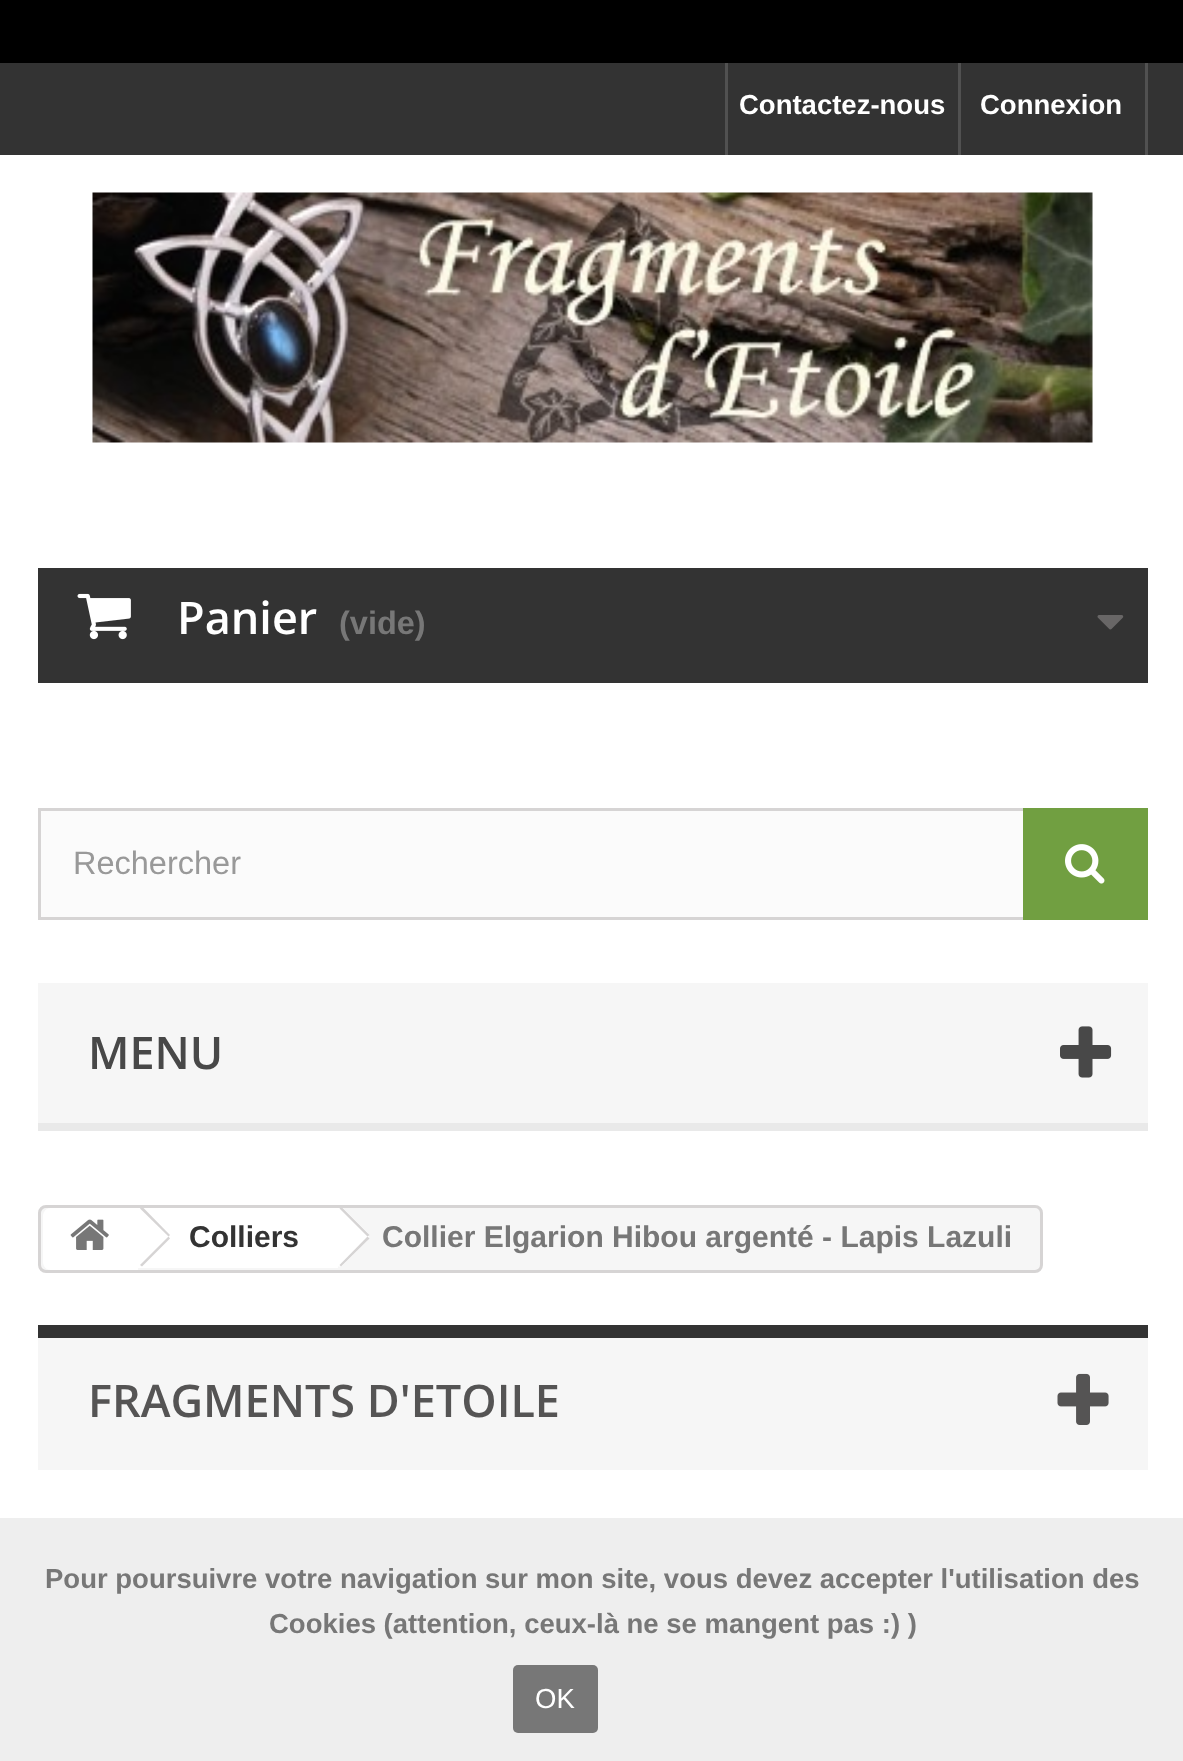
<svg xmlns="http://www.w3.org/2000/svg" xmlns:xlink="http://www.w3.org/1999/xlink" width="1183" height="1761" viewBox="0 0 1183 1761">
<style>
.cls-1{font:bold 27.5px Liberation Sans;fill:#ffffff}
.cls-2{font:600 45px Open Sans;fill:#ffffff}
.cls-3{font:bold 32.5px Liberation Sans;fill:#777777}
.cls-4{font:32.5px Liberation Sans;fill:#999999}
.cls-5{font:600 45px Open Sans;fill:#484848}
.cls-6{font:bold 30px Liberation Sans;fill:#333333}
.cls-7{font:bold 30px Liberation Sans;fill:#777777}
.cls-8{font:600 45px Open Sans;fill:#555454}
.cls-9{font:bold 27.5px Liberation Sans;fill:#777777}
.cls-10{font:27.5px Liberation Sans;fill:#ffffff}
</style>
<rect width="100%" height="100%" fill="#ffffff"/>
<rect fill="#000000" x="0" y="0" width="1183" height="63"/>
<rect fill="#333333" x="0" y="63" width="1183" height="92"/>
<rect fill="#515151" x="725" y="63" width="3" height="92"/>
<rect fill="#515151" x="1145" y="63" width="3" height="92"/>
<rect fill="#515151" x="958" y="63" width="3" height="92"/>
<image xlink:href="image0.png" x="92" y="192" width="1001" height="251"/>
<rect fill="#333333" x="38" y="568" width="1110" height="115"/>
<image xlink:href="image1.png" x="77" y="593" width="54" height="47"/>
<image xlink:href="image2.png" x="1097" y="615" width="27" height="15"/>
<rect fill="#fbfbfb" x="41" y="811" width="982" height="106"/>
<rect fill="none" stroke="#d6d4d4" stroke-width="3" x="39.5" y="809.5" width="1107" height="109"/>
<rect fill="#719f41" x="1023" y="808" width="125" height="112"/>
<image xlink:href="image3.png" x="1065" y="844" width="40" height="40"/>
<rect fill="#f6f6f6" x="38" y="983" width="1110" height="140"/>
<rect fill="#e9e9e9" x="38" y="1123" width="1110" height="8"/>
<image xlink:href="image4.png" x="1060" y="1026" width="52" height="52"/>
<rect fill="#f6f6f6" stroke="#d6d4d4" stroke-width="3" x="39.5" y="1206.5" width="1002" height="65" rx="6.5"/>
<path fill="#ffffff" d="M51 1208H138V1270H51C46.5 1270 43 1266.5 43 1262V1216C43 1211.5 46.5 1208 51 1208Z"/>
<image xlink:href="image5.png" x="70" y="1219" width="39" height="31"/>
<rect fill="#ffffff" x="138" y="1208" width="200" height="60"/>
<path fill="#d6d4d4" d="M143.5 1208L170 1235L168.5 1236.5L140 1208.5L140.5 1208Z"/>
<path fill="#d6d4d4" d="M168.5 1236.5L170 1238.5L142 1266.5L140 1265Z"/>
<path fill="#ffffff" d="M343 1208H336L311 1233C309 1235 309 1238 311 1240L336 1265C338 1267 341 1267 343 1265L368 1240C369 1238 369 1235 368 1233Z"/>
<path fill="#d6d4d4" d="M342.5 1208L369.5 1235L367.5 1236.5L339.5 1208.5L340 1208Z"/>
<path fill="#d6d4d4" d="M367.5 1236.5L369.5 1238.5L341 1266.5L339.5 1265Z"/>
<rect fill="#f6f6f6" x="38" y="1338" width="1110" height="132"/>
<rect fill="#333333" x="38" y="1325" width="1110" height="13"/>
<image xlink:href="image6.png" x="1057" y="1373" width="52" height="52"/>
<rect fill="#eeeeee" x="0" y="1518" width="1183" height="243"/>
<rect fill="#777777" x="513" y="1665" width="85" height="68" rx="5"/>
<text class="cls-1" x="739" y="114">Contactez-nous</text>
<text class="cls-1" x="980" y="114">Connexion</text>
<text class="cls-2" x="177" y="634">Panier</text>
<text class="cls-3" x="339" y="634">(vide)</text>
<text class="cls-4" x="73" y="874">Rechercher</text>
<text class="cls-5" x="88" y="1069">MENU</text>
<text class="cls-6" x="189" y="1247">Colliers</text>
<text class="cls-7" x="382" y="1247">Collier Elgarion Hibou argenté - Lapis Lazuli</text>
<text class="cls-8" x="88" y="1417">FRAGMENTS D'ETOILE</text>
<text class="cls-9" x="45" y="1588">Pour poursuivre votre navigation sur mon site, vous devez accepter l'utilisation des</text>
<text class="cls-9" x="269" y="1633">Cookies (attention, ceux-là ne se mangent pas :) )</text>
<text class="cls-10" x="535" y="1708">OK</text>
</svg>
